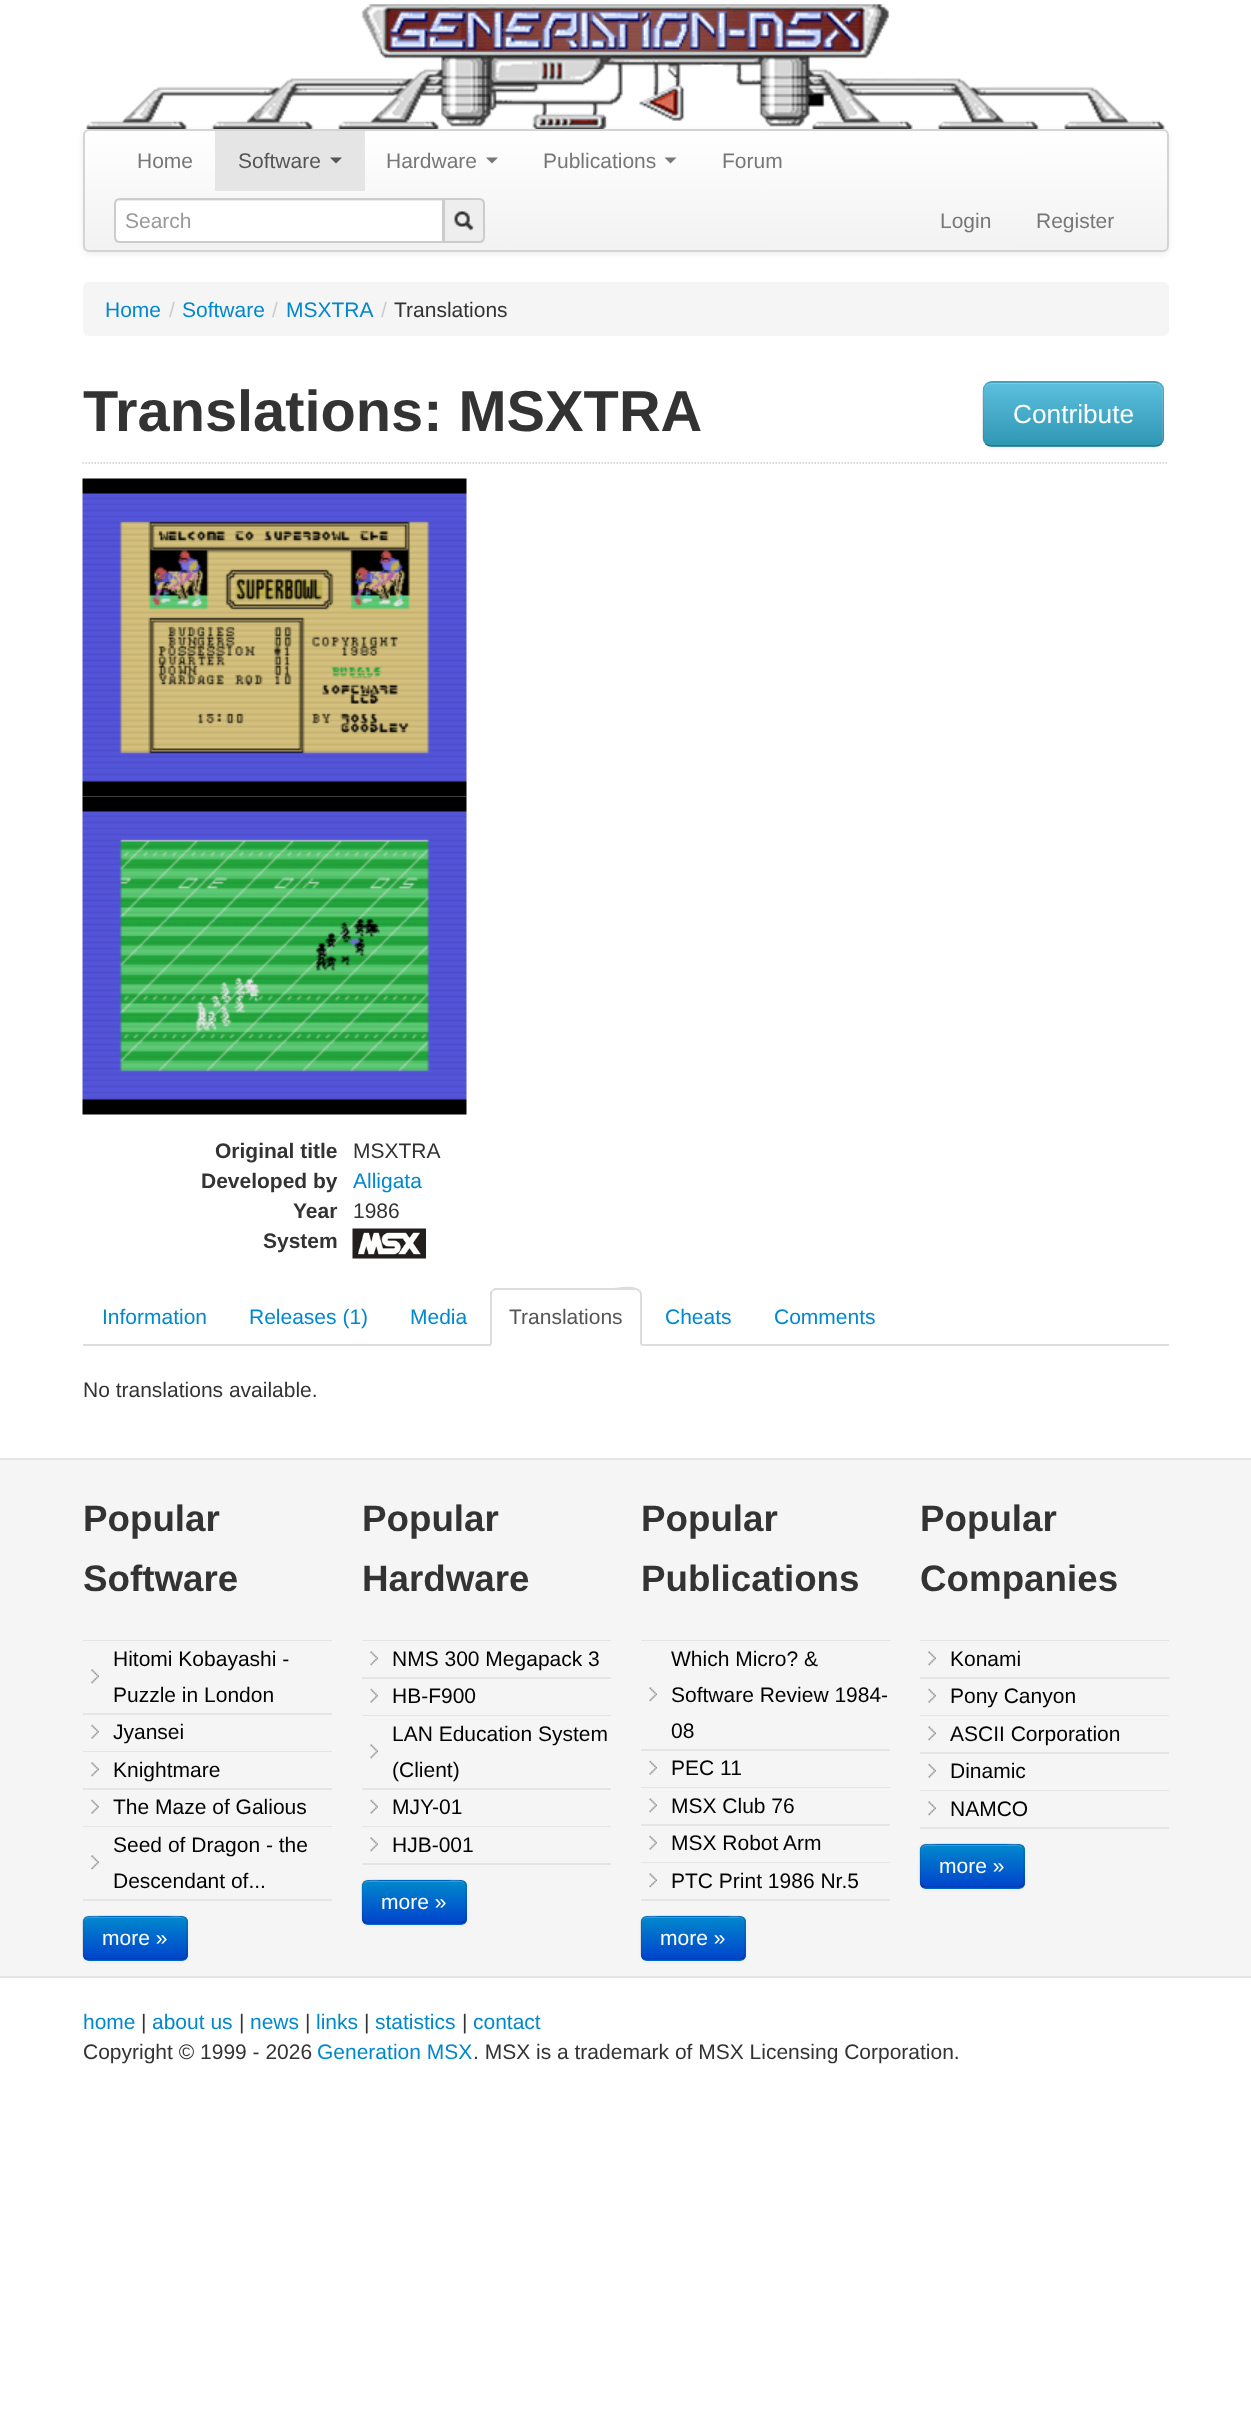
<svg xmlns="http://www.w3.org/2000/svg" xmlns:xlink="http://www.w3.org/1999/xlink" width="1251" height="2430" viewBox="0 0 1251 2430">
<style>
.cls-1{font:21px Liberation Sans;fill:#777777}
.cls-2{font:21px Liberation Sans;fill:#555555}
.cls-3{font:21px Liberation Sans;fill:#999999}
.cls-4{font:21px Liberation Sans;fill:#0088cc}
.cls-5{font:21px Liberation Sans;fill:#cccccc}
.cls-6{font:21px Liberation Sans;fill:#333333}
.cls-7{font:bold 57.75px Liberation Sans;fill:#333333}
.cls-8{font:26.25px Liberation Sans;fill:#ffffff}
.cls-9{font:bold 21px Liberation Sans;fill:#333333}
.cls-10{font:bold 36.75px Liberation Sans;fill:#333333}
.cls-11{font:21px Liberation Sans;fill:#000000}
.cls-12{font:21px Liberation Sans;fill:#ffffff}
</style>
<defs>
<clipPath id="clip1"><rect x="83" y="129" width="1086" height="123" rx="6"/></clipPath>
<linearGradient id="g1" gradientUnits="userSpaceOnUse" x1="626" y1="130" x2="626" y2="251"><stop offset="0" stop-color="#ffffff"/><stop offset="1" stop-color="#f2f2f2"/></linearGradient>
<clipPath id="clip2"><rect x="983" y="381" width="181" height="66" rx="9"/></clipPath>
<linearGradient id="g2" gradientUnits="userSpaceOnUse" x1="1073" y1="383" x2="1073" y2="446"><stop offset="0" stop-color="#5bc0de"/><stop offset="1" stop-color="#2f96b4"/></linearGradient>
<clipPath id="clip3"><rect x="83" y="1916" width="105" height="45" rx="6"/></clipPath>
<linearGradient id="g3" gradientUnits="userSpaceOnUse" x1="135" y1="1917" x2="135" y2="1959"><stop offset="0" stop-color="#0088cc"/><stop offset="1" stop-color="#0044cc"/></linearGradient>
<clipPath id="clip4"><rect x="362" y="1880" width="105" height="45" rx="6"/></clipPath>
<linearGradient id="g4" gradientUnits="userSpaceOnUse" x1="414" y1="1881" x2="414" y2="1923"><stop offset="0" stop-color="#0088cc"/><stop offset="1" stop-color="#0044cc"/></linearGradient>
<clipPath id="clip5"><rect x="641" y="1916" width="105" height="45" rx="6"/></clipPath>
<linearGradient id="g5" gradientUnits="userSpaceOnUse" x1="693" y1="1917" x2="693" y2="1959"><stop offset="0" stop-color="#0088cc"/><stop offset="1" stop-color="#0044cc"/></linearGradient>
<clipPath id="clip6"><rect x="920" y="1844" width="105" height="45" rx="6"/></clipPath>
<linearGradient id="g6" gradientUnits="userSpaceOnUse" x1="972" y1="1845" x2="972" y2="1887"><stop offset="0" stop-color="#0088cc"/><stop offset="1" stop-color="#0044cc"/></linearGradient>
</defs>
<rect width="100%" height="100%" fill="#ffffff"/>
<rect fill="#000000" fill-opacity="0.07" filter="blur(3px)" x="83" y="131" width="1086" height="123" rx="6"/>
<image xlink:href="image0.png" x="84" y="4" width="1081" height="125"/>
<g clip-path="url(#clip1)">
<rect fill="url(#g1)" x="83" y="131" width="1086" height="120"/>
</g>
<rect fill="none" stroke="#d4d4d4" stroke-width="2" x="84" y="130" width="1084" height="121" rx="5"/>
<rect fill="#e5e5e5" x="215" y="131" width="150" height="60"/>
<path fill="#555555" d="M330 157.5H342L336 163.5Z"/>
<path fill="#777777" d="M486 157.5H498L492 163.5Z"/>
<path fill="#777777" d="M664.5 157.5H676.5L670.5 163.5Z"/>
<path fill="#eeeeee" stroke="#cccccc" stroke-width="2" d="M444 199H479C482 199 484 201 484 204V237C484 240 482 242 479 242H444Z"/>
<path fill="#ffffff" d="M120 198H444V243H120C116.5 243 114 240.5 114 237V204C114 200.5 116.5 198 120 198Z"/>
<path fill="#ececec" d="M120 201H442V242H443V200H121C118 200 116 203 116 206C116 203 118 201 120 201Z"/>
<path fill="none" stroke="#cccccc" stroke-width="2" d="M120 199H443V242H120C117 242 115 240 115 237V204C115 201 117 199 120 199Z"/>
<image xlink:href="image1.png" x="454" y="211" width="20" height="20"/>
<rect fill="#f5f5f5" x="83" y="282" width="1086" height="54" rx="6"/>
<rect fill="#000000" fill-opacity="0.05" filter="blur(1.5px)" x="983" y="383" width="181" height="66" rx="9"/>
<rect fill="#49afcd" x="983" y="381" width="181" height="66" rx="9"/>
<g clip-path="url(#clip2)">
<rect fill="url(#g2)" x="983" y="383" width="181" height="63"/>
</g>
<path fill="#ffffff" fill-opacity="0.2" d="M992 384H1155C1159 384 1162 387 1162 392V440V443C1162 441 1163 440 1163 438V391C1163 387 1159 383 1155 383H992C988 383 984 387 984 391V392C984 387 987 384 992 384Z"/>
<path fill="none" stroke="#000000" stroke-opacity="0.25" stroke-width="1.5" d="M1161 444C1159.5 445.5 1157 446 1155 446H991.5C989.5 446 987 445.5 985.5 444"/>
<path fill="none" stroke="#000000" stroke-opacity="0.1" stroke-width="1.5" d="M985.5 444C982 440.5 983 434.5 983 430V414C983 376.5 978.5 382 1019 382H1128C1168 382 1163 376.5 1163 414V430C1163 434.5 1164.5 440.5 1161 444"/>
<path fill="none" stroke="#cccccc" stroke-width="1.5" stroke-dasharray="1.5 1.5" d="M82.5 463H1168.5"/>
<image xlink:href="image2.png" x="82" y="478" width="385" height="319"/>
<image xlink:href="image3.png" x="82" y="796" width="385" height="319"/>
<image xlink:href="image4.png" x="352" y="1228" width="74" height="31"/>
<rect fill="#dddddd" x="83" y="1344" width="1086" height="2"/>
<path fill="#ffffff" d="M497 1289H636C639.5 1289 642 1291.5 642 1295V1346H491V1295C491 1291.5 493.5 1289 497 1289Z"/>
<path fill="#dddddd" d="M496 1290L493 1291L492 1290L494 1288H614C615 1288 634 1284 640 1290L639 1292C638 1291 637 1290 636 1290Z"/>
<path fill="#dddddd" d="M642 1346V1294C642 1293 641 1291 640 1290L639 1292L640 1294V1344Z"/>
<path fill="#dddddd" d="M490 1346V1292L492 1290L493 1291L492 1294V1344Z"/>
<rect fill="#f5f5f5" x="0" y="1460" width="1251" height="516"/>
<rect fill="#e5e5e5" x="0" y="1458" width="1251" height="2"/>
<rect fill="#e5e5e5" x="0" y="1976" width="1251" height="2"/>
<rect fill="#e5e5e5" x="83" y="1640" width="249" height="1"/>
<image xlink:href="image5.png" x="91" y="1669" width="8" height="15"/>
<rect fill="#e5e5e5" x="83" y="1713" width="249" height="2"/>
<image xlink:href="image6.png" x="91" y="1724" width="8" height="15"/>
<rect fill="#e5e5e5" x="83" y="1751" width="249" height="1"/>
<image xlink:href="image5.png" x="91" y="1762" width="8" height="15"/>
<rect fill="#e5e5e5" x="83" y="1788" width="249" height="2"/>
<image xlink:href="image6.png" x="91" y="1799" width="8" height="15"/>
<rect fill="#e5e5e5" x="83" y="1826" width="249" height="1"/>
<image xlink:href="image5.png" x="91" y="1855" width="8" height="15"/>
<rect fill="#e5e5e5" x="83" y="1899" width="249" height="2"/>
<rect fill="#000000" fill-opacity="0.05" filter="blur(1.5px)" x="83" y="1917" width="105" height="45" rx="6"/>
<rect fill="#006dcc" x="83" y="1916" width="105" height="45" rx="6"/>
<g clip-path="url(#clip3)">
<rect fill="url(#g3)" x="83" y="1917" width="105" height="42"/>
</g>
<path fill="#ffffff" fill-opacity="0.2" d="M88 1918H182C184 1918 186 1921 186 1923C186 1913 171 1917 166 1917H104C99 1917 84 1913 84 1923C84 1921 86 1918 88 1918Z"/>
<path fill="none" stroke="#000000" stroke-opacity="0.25" stroke-width="1.5" d="M185 1958L182 1959.5H88L85 1958"/>
<path fill="none" stroke="#000000" stroke-opacity="0.1" stroke-width="1.5" d="M85 1958C82.5 1956 83 1952 83 1949V1938C83 1914 79.5 1916 104 1916H166C190.5 1916 187 1914 187 1938V1949C187 1952 187.5 1956 185 1958"/>
<rect fill="#e5e5e5" x="362" y="1640" width="249" height="1"/>
<image xlink:href="image7.png" x="370" y="1651" width="8" height="15"/>
<rect fill="#e5e5e5" x="362" y="1677" width="249" height="2"/>
<image xlink:href="image8.png" x="370" y="1688" width="8" height="15"/>
<rect fill="#e5e5e5" x="362" y="1715" width="249" height="1"/>
<image xlink:href="image7.png" x="370" y="1744" width="8" height="15"/>
<rect fill="#e5e5e5" x="362" y="1788" width="249" height="2"/>
<image xlink:href="image8.png" x="370" y="1799" width="8" height="15"/>
<rect fill="#e5e5e5" x="362" y="1826" width="249" height="1"/>
<image xlink:href="image7.png" x="370" y="1837" width="8" height="15"/>
<rect fill="#e5e5e5" x="362" y="1863" width="249" height="2"/>
<rect fill="#000000" fill-opacity="0.05" filter="blur(1.5px)" x="362" y="1881" width="105" height="45" rx="6"/>
<rect fill="#006dcc" x="362" y="1880" width="105" height="45" rx="6"/>
<g clip-path="url(#clip4)">
<rect fill="url(#g4)" x="362" y="1881" width="105" height="42"/>
</g>
<path fill="#ffffff" fill-opacity="0.2" d="M368 1882H460C463 1882 465 1885 465 1887C465 1877 450 1881 445 1881H383C378 1881 363 1877 363 1887C363 1885 365 1882 368 1882Z"/>
<path fill="none" stroke="#000000" stroke-opacity="0.25" stroke-width="1.5" d="M464 1922L461 1923.5H367L364 1922"/>
<path fill="none" stroke="#000000" stroke-opacity="0.1" stroke-width="1.5" d="M364 1922C361.5 1920 362 1916 362 1913V1902C362 1878 358.5 1880 383 1880H445C469.5 1880 466 1878 466 1902V1913C466 1916 466.5 1920 464 1922"/>
<rect fill="#e5e5e5" x="641" y="1640" width="249" height="1"/>
<image xlink:href="image7.png" x="649" y="1687" width="8" height="15"/>
<rect fill="#e5e5e5" x="641" y="1749" width="249" height="2"/>
<image xlink:href="image8.png" x="649" y="1760" width="8" height="15"/>
<rect fill="#e5e5e5" x="641" y="1787" width="249" height="1"/>
<image xlink:href="image7.png" x="649" y="1798" width="8" height="15"/>
<rect fill="#e5e5e5" x="641" y="1824" width="249" height="2"/>
<image xlink:href="image8.png" x="649" y="1835" width="8" height="15"/>
<rect fill="#e5e5e5" x="641" y="1862" width="249" height="1"/>
<image xlink:href="image7.png" x="649" y="1873" width="8" height="15"/>
<rect fill="#e5e5e5" x="641" y="1899" width="249" height="2"/>
<rect fill="#000000" fill-opacity="0.05" filter="blur(1.5px)" x="641" y="1917" width="105" height="45" rx="6"/>
<rect fill="#006dcc" x="641" y="1916" width="105" height="45" rx="6"/>
<g clip-path="url(#clip5)">
<rect fill="url(#g5)" x="641" y="1917" width="105" height="42"/>
</g>
<path fill="#ffffff" fill-opacity="0.2" d="M646 1918H740C742 1918 744 1921 744 1923C744 1913 729 1917 724 1917H662C657 1917 642 1913 642 1923C642 1921 644 1918 646 1918Z"/>
<path fill="none" stroke="#000000" stroke-opacity="0.25" stroke-width="1.5" d="M743 1958L740 1959.5H646L643 1958"/>
<path fill="none" stroke="#000000" stroke-opacity="0.1" stroke-width="1.5" d="M643 1958C640.5 1956 641 1952 641 1949V1938C641 1914 637.5 1916 662 1916H724C748.5 1916 745 1914 745 1938V1949C745 1952 745.5 1956 743 1958"/>
<rect fill="#e5e5e5" x="920" y="1640" width="249" height="1"/>
<image xlink:href="image5.png" x="928" y="1651" width="8" height="15"/>
<rect fill="#e5e5e5" x="920" y="1677" width="249" height="2"/>
<image xlink:href="image6.png" x="928" y="1688" width="8" height="15"/>
<rect fill="#e5e5e5" x="920" y="1715" width="249" height="1"/>
<image xlink:href="image5.png" x="928" y="1726" width="8" height="15"/>
<rect fill="#e5e5e5" x="920" y="1752" width="249" height="2"/>
<image xlink:href="image6.png" x="928" y="1763" width="8" height="15"/>
<rect fill="#e5e5e5" x="920" y="1790" width="249" height="1"/>
<image xlink:href="image5.png" x="928" y="1801" width="8" height="15"/>
<rect fill="#e5e5e5" x="920" y="1827" width="249" height="2"/>
<rect fill="#000000" fill-opacity="0.05" filter="blur(1.5px)" x="920" y="1845" width="105" height="45" rx="6"/>
<rect fill="#006dcc" x="920" y="1844" width="105" height="45" rx="6"/>
<g clip-path="url(#clip6)">
<rect fill="url(#g6)" x="920" y="1845" width="105" height="42"/>
</g>
<path fill="#ffffff" fill-opacity="0.2" d="M926 1846H1018C1021 1846 1023 1849 1023 1851C1023 1841 1008 1845 1003 1845H941C936 1845 921 1841 921 1851C921 1849 923 1846 926 1846Z"/>
<path fill="none" stroke="#000000" stroke-opacity="0.25" stroke-width="1.5" d="M1022 1886L1019 1887.5H925L922 1886"/>
<path fill="none" stroke="#000000" stroke-opacity="0.1" stroke-width="1.5" d="M922 1886C919.5 1884 920 1880 920 1877V1866C920 1842 916.5 1844 941 1844H1003C1027.5 1844 1024 1842 1024 1866V1877C1024 1880 1024.5 1884 1022 1886"/>
<text class="cls-1" x="137" y="168">Home</text>
<text class="cls-2" x="238" y="168">Software</text>
<text class="cls-1" x="386" y="168">Hardware</text>
<text class="cls-1" x="543" y="168">Publications</text>
<text class="cls-1" x="722" y="168">Forum</text>
<text class="cls-3" x="125" y="228">Search</text>
<text class="cls-1" x="940" y="228">Login</text>
<text class="cls-1" x="1036" y="228">Register</text>
<text class="cls-4" x="105" y="317">Home</text>
<text class="cls-5" x="169" y="317">/</text>
<text class="cls-4" x="182" y="317">Software</text>
<text class="cls-5" x="272" y="317">/</text>
<text class="cls-4" x="286" y="317">MSXTRA</text>
<text class="cls-5" x="381" y="317">/</text>
<text class="cls-6" x="394" y="317">Translations</text>
<text class="cls-7" x="83" y="431">Translations: MSXTRA</text>
<text class="cls-8" x="1013" y="423">Contribute</text>
<text class="cls-9" x="215" y="1158">Original title</text>
<text class="cls-6" x="353" y="1158">MSXTRA</text>
<text class="cls-9" x="201" y="1188">Developed by</text>
<text class="cls-4" x="353" y="1188">Alligata</text>
<text class="cls-9" x="293" y="1218">Year</text>
<text class="cls-6" x="353" y="1218">1986</text>
<text class="cls-9" x="263" y="1248">System</text>
<text class="cls-4" x="102" y="1324">Information</text>
<text class="cls-4" x="249" y="1324">Releases (1)</text>
<text class="cls-4" x="410" y="1324">Media</text>
<text class="cls-2" x="509" y="1324">Translations</text>
<text class="cls-4" x="665" y="1324">Cheats</text>
<text class="cls-4" x="774" y="1324">Comments</text>
<text class="cls-6" x="83" y="1397">No translations available.</text>
<text class="cls-10"><tspan x="83" y="1531">Popular</tspan><tspan x="83" y="1591">Software</tspan></text>
<text class="cls-11"><tspan x="113" y="1666">Hitomi Kobayashi -</tspan><tspan x="113" y="1702">Puzzle in London</tspan><tspan x="113" y="1739">Jyansei</tspan><tspan x="113" y="1777">Knightmare</tspan><tspan x="113" y="1814">The Maze of Galious</tspan><tspan x="113" y="1852">Seed of Dragon - the</tspan><tspan x="113" y="1888">Descendant of...</tspan></text>
<text class="cls-12" x="102" y="1945">more »</text>
<text class="cls-10"><tspan x="362" y="1531">Popular</tspan><tspan x="362" y="1591">Hardware</tspan></text>
<text class="cls-11"><tspan x="392" y="1666">NMS 300 Megapack 3</tspan><tspan x="392" y="1703">HB-F900</tspan><tspan x="392" y="1741">LAN Education System</tspan><tspan x="392" y="1777">(Client)</tspan><tspan x="392" y="1814">MJY-01</tspan><tspan x="392" y="1852">HJB-001</tspan></text>
<text class="cls-12" x="381" y="1909">more »</text>
<text class="cls-10"><tspan x="641" y="1531">Popular</tspan><tspan x="641" y="1591">Publications</tspan></text>
<text class="cls-11"><tspan x="671" y="1666">Which Micro? &amp;</tspan><tspan x="671" y="1702">Software Review 1984-</tspan><tspan x="671" y="1738">08</tspan><tspan x="671" y="1775">PEC 11</tspan><tspan x="671" y="1813">MSX Club 76</tspan><tspan x="671" y="1850">MSX Robot Arm</tspan><tspan x="671" y="1888">PTC Print 1986 Nr.5</tspan></text>
<text class="cls-12" x="660" y="1945">more »</text>
<text class="cls-10"><tspan x="920" y="1531">Popular</tspan><tspan x="920" y="1591">Companies</tspan></text>
<text class="cls-11"><tspan x="950" y="1666">Konami</tspan><tspan x="950" y="1703">Pony Canyon</tspan><tspan x="950" y="1741">ASCII Corporation</tspan><tspan x="950" y="1778">Dinamic</tspan><tspan x="950" y="1816">NAMCO</tspan></text>
<text class="cls-12" x="939" y="1873">more »</text>
<text class="cls-4" x="83" y="2029">home</text>
<text class="cls-6" x="141" y="2029">|</text>
<text class="cls-4" x="152" y="2029">about us</text>
<text class="cls-6" x="239" y="2029">|</text>
<text class="cls-4" x="250" y="2029">news</text>
<text class="cls-6" x="305" y="2029">|</text>
<text class="cls-4" x="316" y="2029">links</text>
<text class="cls-6" x="364" y="2029">|</text>
<text class="cls-4" x="375" y="2029">statistics</text>
<text class="cls-6" x="462" y="2029">|</text>
<text class="cls-4" x="473" y="2029">contact</text>
<text class="cls-6" x="83" y="2059">Copyright © 1999 - 2026</text>
<text class="cls-4" x="317" y="2059">Generation MSX</text>
<text class="cls-6" x="473" y="2059">. MSX is a trademark of MSX Licensing Corporation.</text>
</svg>
